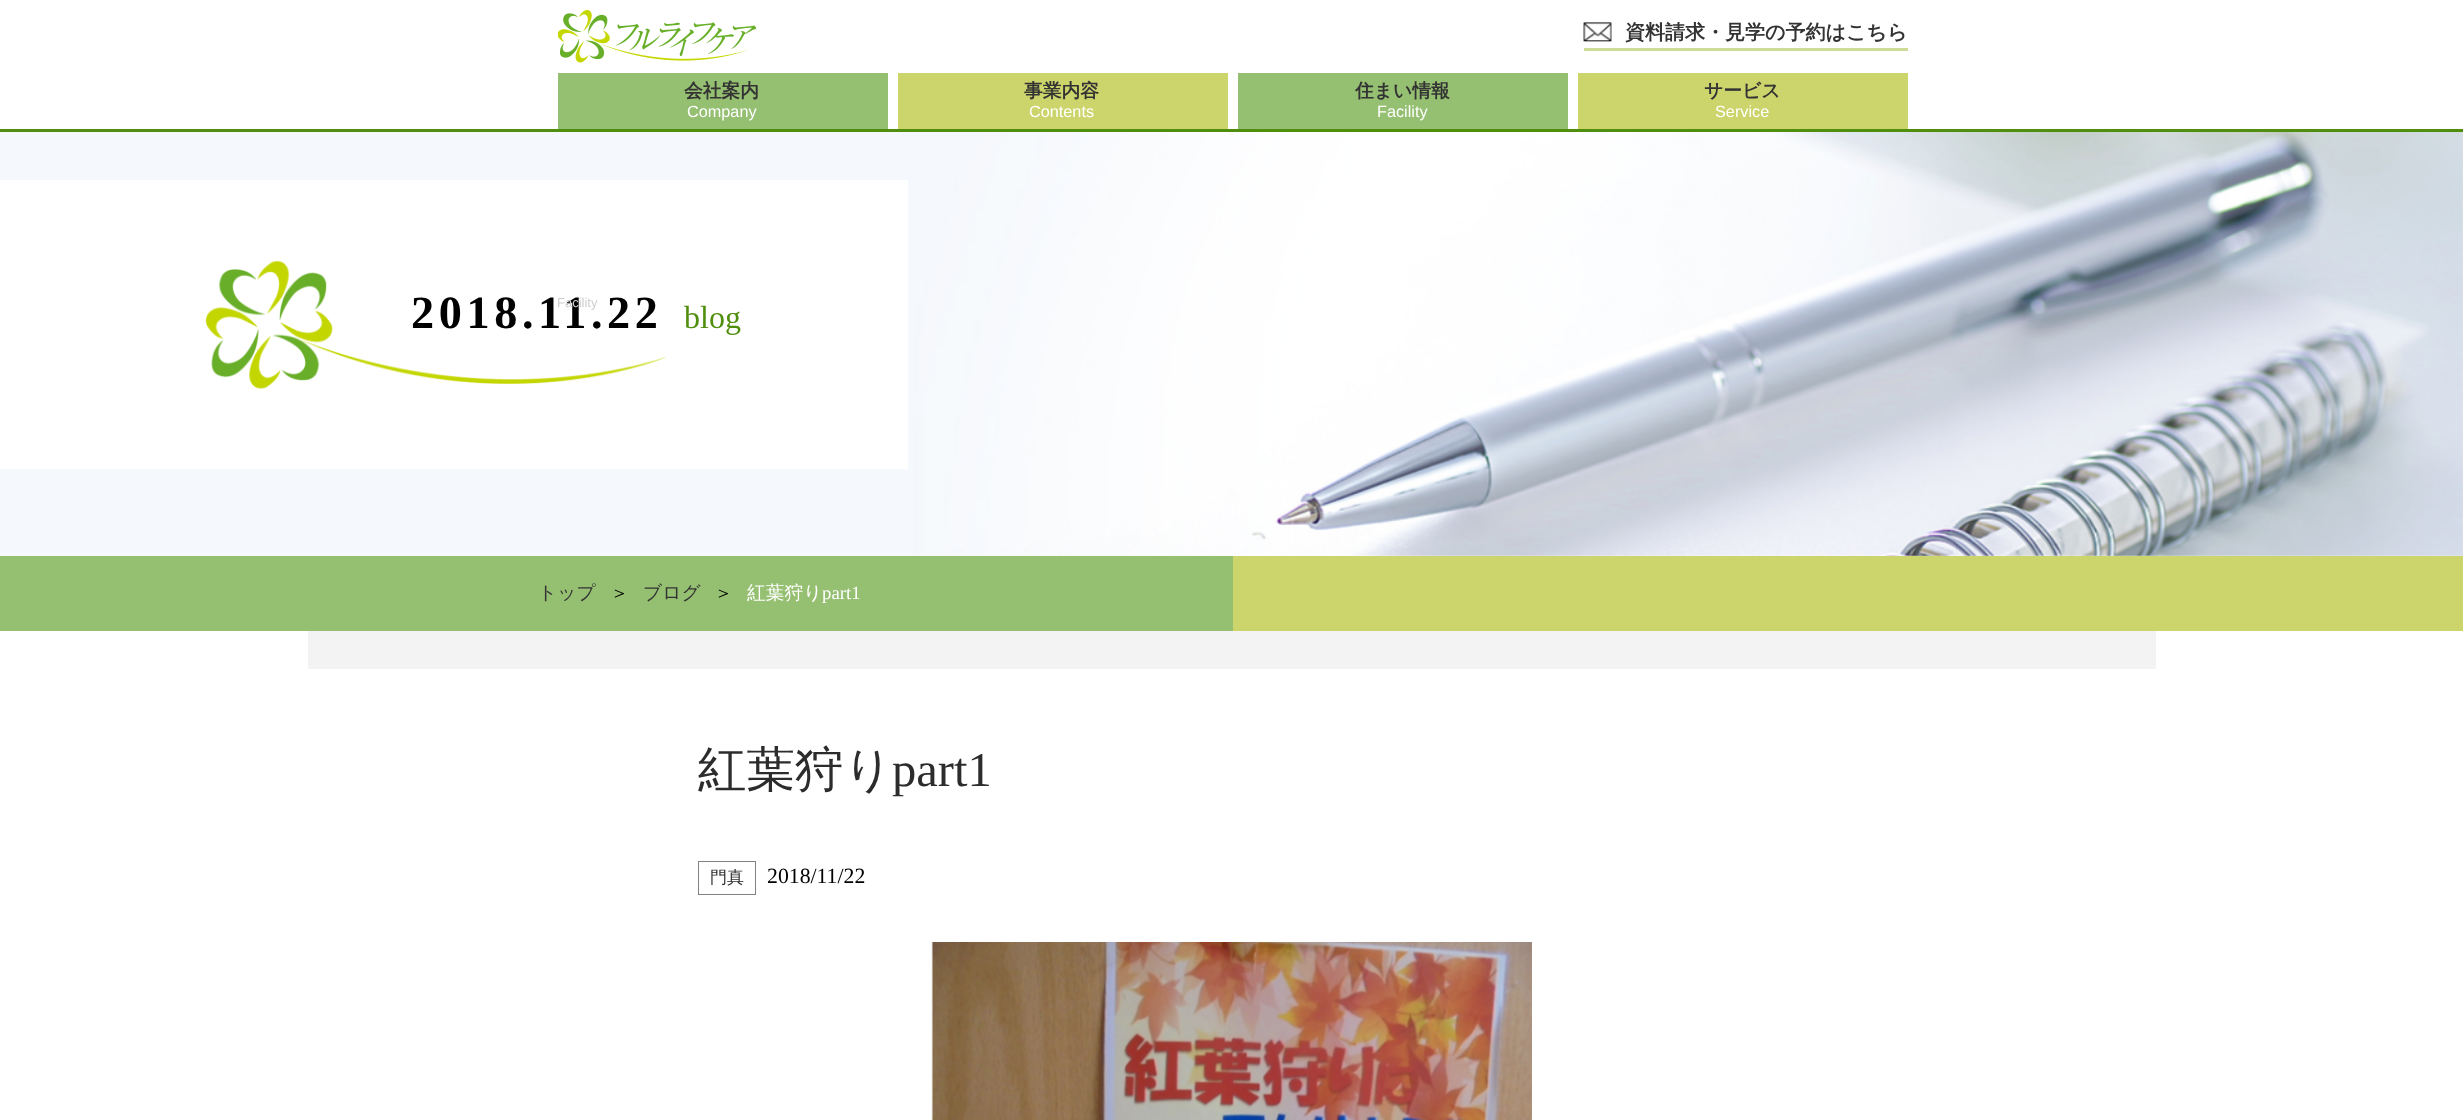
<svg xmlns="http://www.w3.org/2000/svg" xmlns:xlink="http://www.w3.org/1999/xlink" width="2463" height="1120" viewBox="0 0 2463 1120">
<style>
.cls-1{font:bold 20px WenQuanYi Zen Hei;fill:#333333}
.cls-2{font:bold 18.75px WenQuanYi Zen Hei;fill:#333333}
.cls-3{font:16.25px Liberation Sans;fill:#ffffff}
.cls-4{font:bold 46.25px Liberation Serif;letter-spacing:4.6px;fill:#000000}
.cls-5{font:13px Liberation Sans;fill:#cecece}
.cls-6{font:32px Liberation Serif;fill:#508e0d}
.cls-7{font:500 18.75px WenQuanYi Zen Hei;fill:#333333}
.cls-8{font:500 18.75px WenQuanYi Zen Hei;fill:#000000}
.cls-9{font:500 18.75px WenQuanYi Zen Hei;fill:#ffffff}
.cls-10{font:18.75px Liberation Serif;fill:#ffffff}
.cls-11{font:500 48.5px WenQuanYi Zen Hei;fill:#2c2c2c}
.cls-12{font:48.5px Liberation Serif;fill:#2c2c2c}
.cls-13{font:500 17px WenQuanYi Zen Hei;fill:#2c2c2c}
.cls-14{font:21.75px Liberation Serif;fill:#000000}
</style>
<rect width="100%" height="100%" fill="#ffffff"/>
<rect fill="#508e0d" x="0" y="129" width="2463" height="3"/>
<image xlink:href="image0.png" x="558" y="10" width="198" height="53"/>
<image xlink:href="image1.png" x="1583" y="22" width="29" height="20"/>
<rect fill="#ccdb96" x="1584" y="48" width="324" height="3"/>
<rect fill="#95bf71" x="558" y="73" width="330" height="56"/>
<rect fill="#95bf71" x="1238" y="73" width="330" height="56"/>
<rect fill="#ccd56b" x="898" y="73" width="330" height="56"/>
<rect fill="#ccd56b" x="1578" y="73" width="330" height="56"/>
<image xlink:href="image2.png" x="0" y="132" width="2463" height="424"/>
<rect fill="#ffffff" x="0" y="180" width="908" height="289"/>
<image xlink:href="image3.png" x="205" y="261" width="461" height="128"/>
<rect fill="#95bf71" x="0" y="556" width="1233" height="75"/>
<rect fill="#ccd56b" x="1233" y="556" width="1230" height="75"/>
<rect fill="#f3f3f3" x="308" y="631" width="1848" height="38"/>
<rect fill="none" stroke="#828282" x="698.5" y="861.5" width="57" height="33"/>
<image xlink:href="image4.png" x="931" y="942" width="601" height="178"/>
<text class="cls-1" x="1625" y="39">資料請求・見学の予約はこちら</text>
<text class="cls-2" x="684" y="97">会社案内</text>
<text class="cls-3" x="687" y="117">Company</text>
<text class="cls-2" x="1355" y="97">住まい情報</text>
<text class="cls-3" x="1377" y="117">Facility</text>
<text class="cls-2" x="1024" y="97">事業内容</text>
<text class="cls-3" x="1029" y="117">Contents</text>
<text class="cls-2" x="1704" y="97">サービス</text>
<text class="cls-3" x="1715" y="117">Service</text>
<text class="cls-4" x="411" y="328">2018.11.22</text>
<text class="cls-5" x="557" y="307">Facility</text>
<text class="cls-6" x="684" y="328">blog</text>
<text class="cls-7" x="538" y="599">トップ</text>
<text class="cls-8" x="610" y="599">＞</text>
<text class="cls-7" x="643" y="599">ブログ</text>
<text class="cls-8" x="714" y="599">＞</text>
<text class="cls-9" x="747" y="599">紅葉狩り</text>
<text class="cls-10" x="822" y="599">part1</text>
<text class="cls-11" x="698" y="786">紅葉狩り</text>
<text class="cls-12" x="892" y="786">part1</text>
<text class="cls-13" x="710" y="883">門真</text>
<text class="cls-14" x="767" y="883">2018/11/22</text>
</svg>
